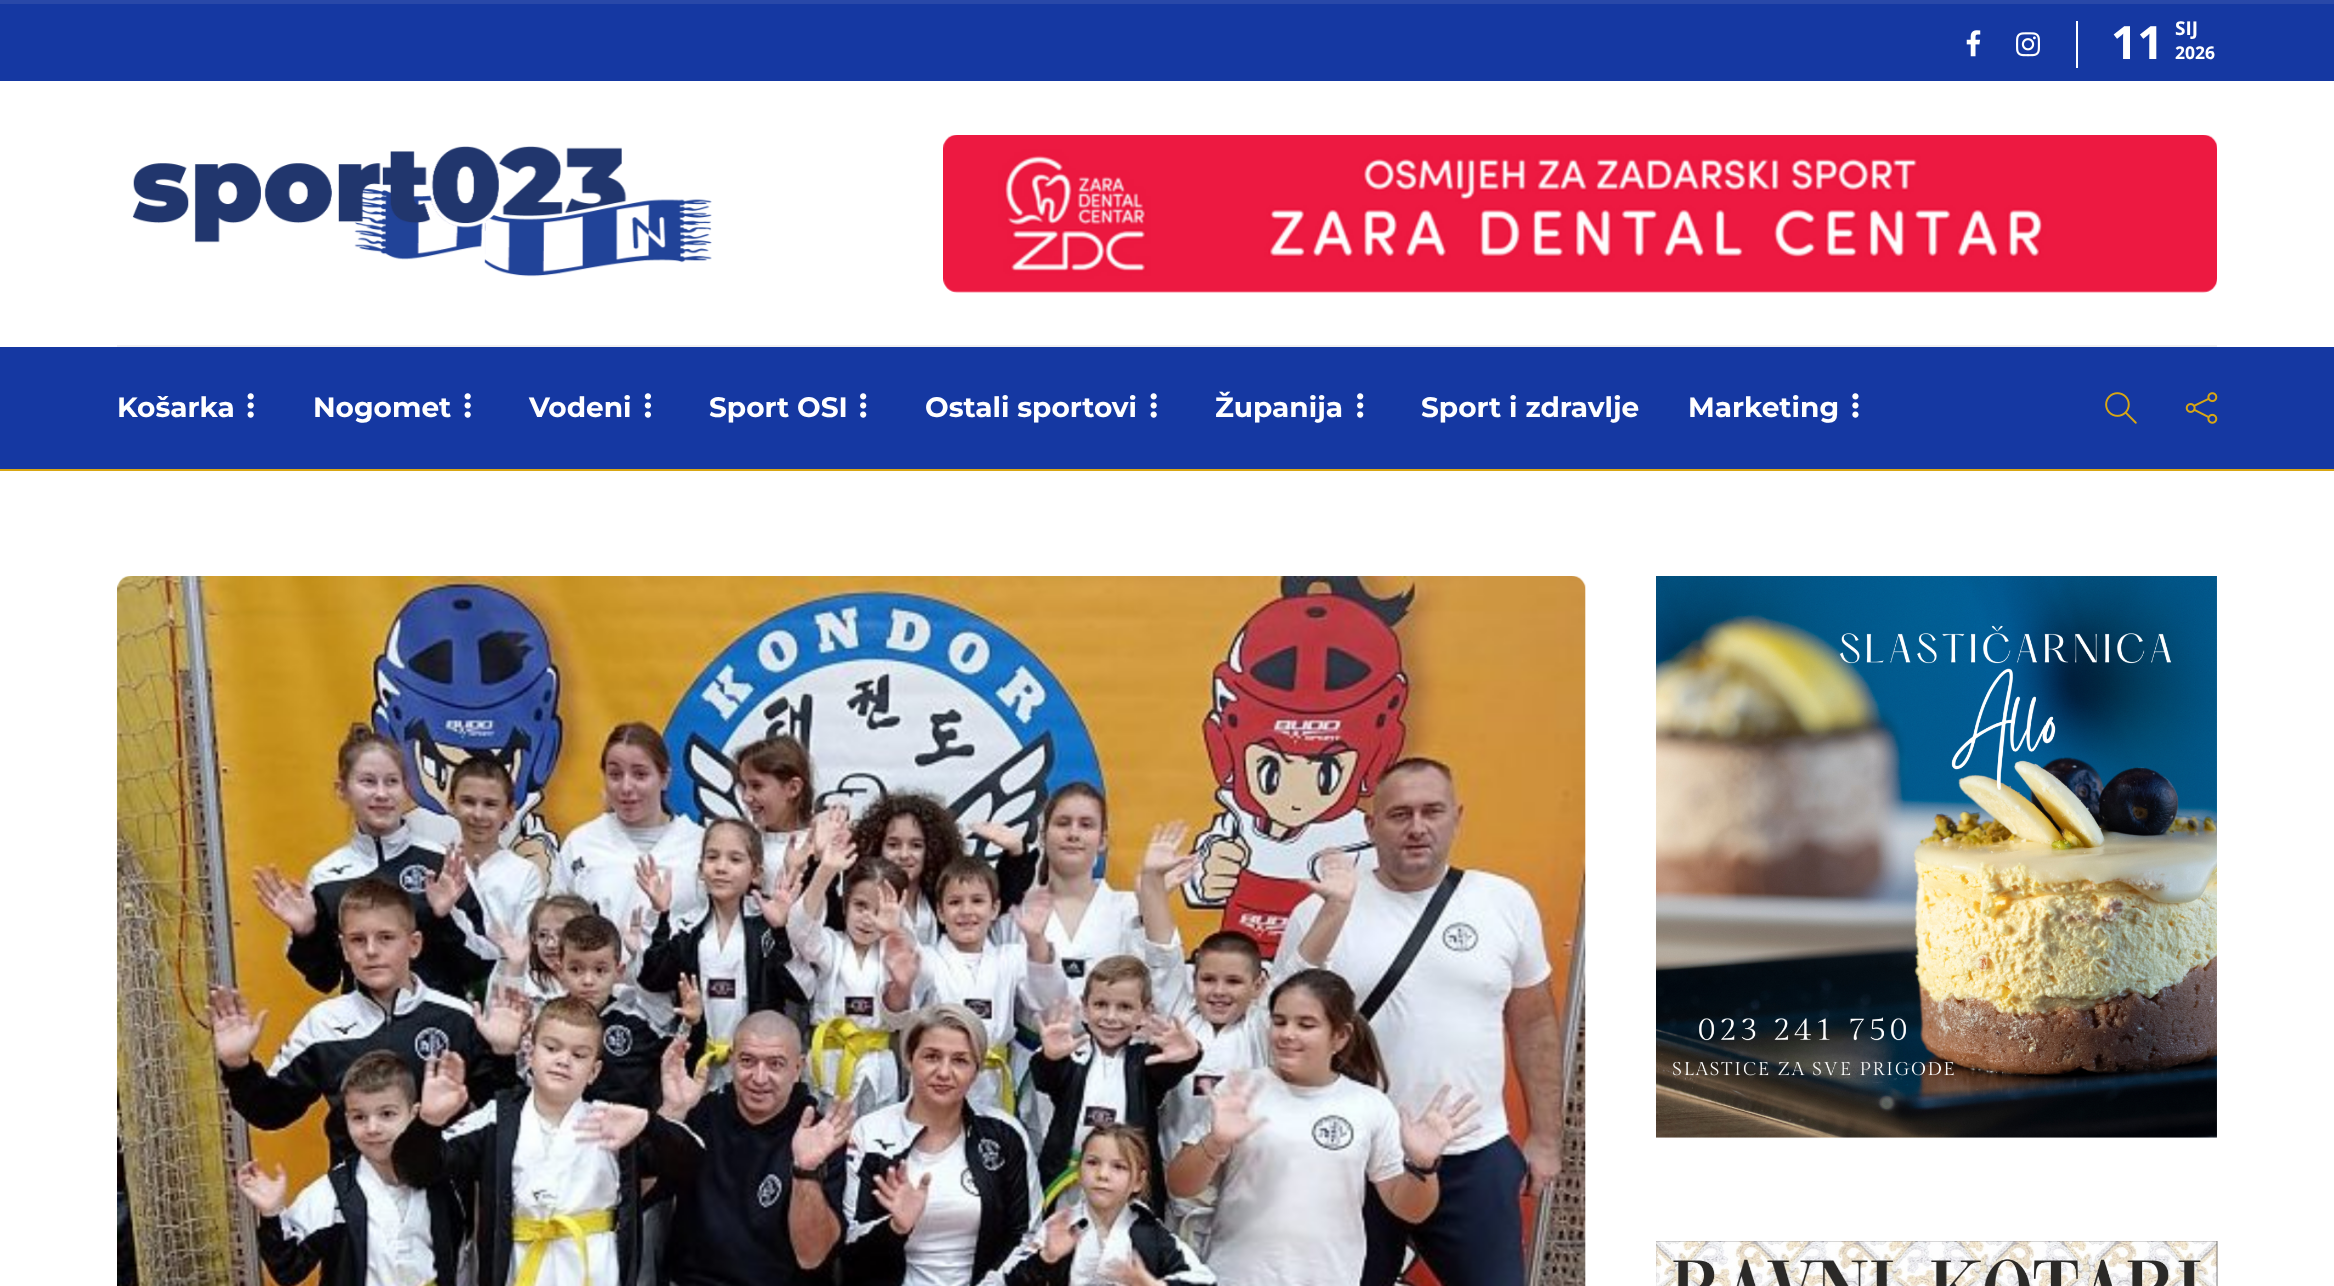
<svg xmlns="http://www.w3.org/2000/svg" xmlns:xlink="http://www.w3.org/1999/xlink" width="2334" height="1286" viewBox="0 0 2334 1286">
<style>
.cls-1{font:bold 46px Open Sans;fill:#ffffff}
.cls-2{font:bold 19px Open Sans;fill:#ffffff}
.cls-3{font:bold 17.5px Open Sans;fill:#ffffff}
.cls-4{font:bold 28px Montserrat;fill:#ffffff}
</style>
<rect width="100%" height="100%" fill="#ffffff"/>
<rect fill="#2948a8" x="0" y="0" width="2334" height="4"/>
<rect fill="#1538a2" x="0" y="4" width="2334" height="77"/>
<rect fill="#ffffff" x="2076" y="21" width="2" height="47"/>
<image xlink:href="image0.png" x="1966" y="30" width="15" height="27"/>
<image xlink:href="image1.png" x="2016" y="32" width="24" height="25"/>
<rect fill="#f1f1f1" x="117" y="345" width="2100" height="2"/>
<image xlink:href="image2.png" x="132" y="146" width="580" height="131"/>
<image xlink:href="image3.png" x="943" y="135" width="1274" height="158"/>
<rect fill="#1538a2" x="0" y="347" width="2334" height="122"/>
<rect fill="#d9a714" x="0" y="469" width="2334" height="2"/>
<image xlink:href="image4.png" x="247" y="393" width="7" height="25"/>
<image xlink:href="image4.png" x="464" y="393" width="7" height="25"/>
<image xlink:href="image5.png" x="644" y="393" width="7" height="25"/>
<image xlink:href="image6.png" x="860" y="393" width="7" height="25"/>
<image xlink:href="image4.png" x="1150" y="393" width="7" height="25"/>
<image xlink:href="image6.png" x="1357" y="393" width="7" height="25"/>
<image xlink:href="image7.png" x="1852" y="393" width="7" height="25"/>
<image xlink:href="image8.png" x="2105" y="392" width="32" height="32"/>
<image xlink:href="image9.png" x="2185" y="392" width="33" height="32"/>
<image xlink:href="image10.png" x="117" y="576" width="1469" height="710"/>
<image xlink:href="image11.png" x="1656" y="576" width="561" height="562"/>
<image xlink:href="image12.png" x="1656" y="1241" width="562" height="45"/>
<text class="cls-1" x="2111" y="59">11</text>
<text class="cls-2" x="2175" y="35">SIJ</text>
<text class="cls-3" x="2175" y="59">2026</text>
<text class="cls-4" x="117" y="417">Košarka</text>
<text class="cls-4" x="313" y="417">Nogomet</text>
<text class="cls-4" x="529" y="417">Vodeni</text>
<text class="cls-4" x="709" y="417">Sport OSI</text>
<text class="cls-4" x="925" y="417">Ostali sportovi</text>
<text class="cls-4" x="1215" y="417">Županija</text>
<text class="cls-4" x="1421" y="417">Sport i zdravlje</text>
<text class="cls-4" x="1688" y="417">Marketing</text>
</svg>
